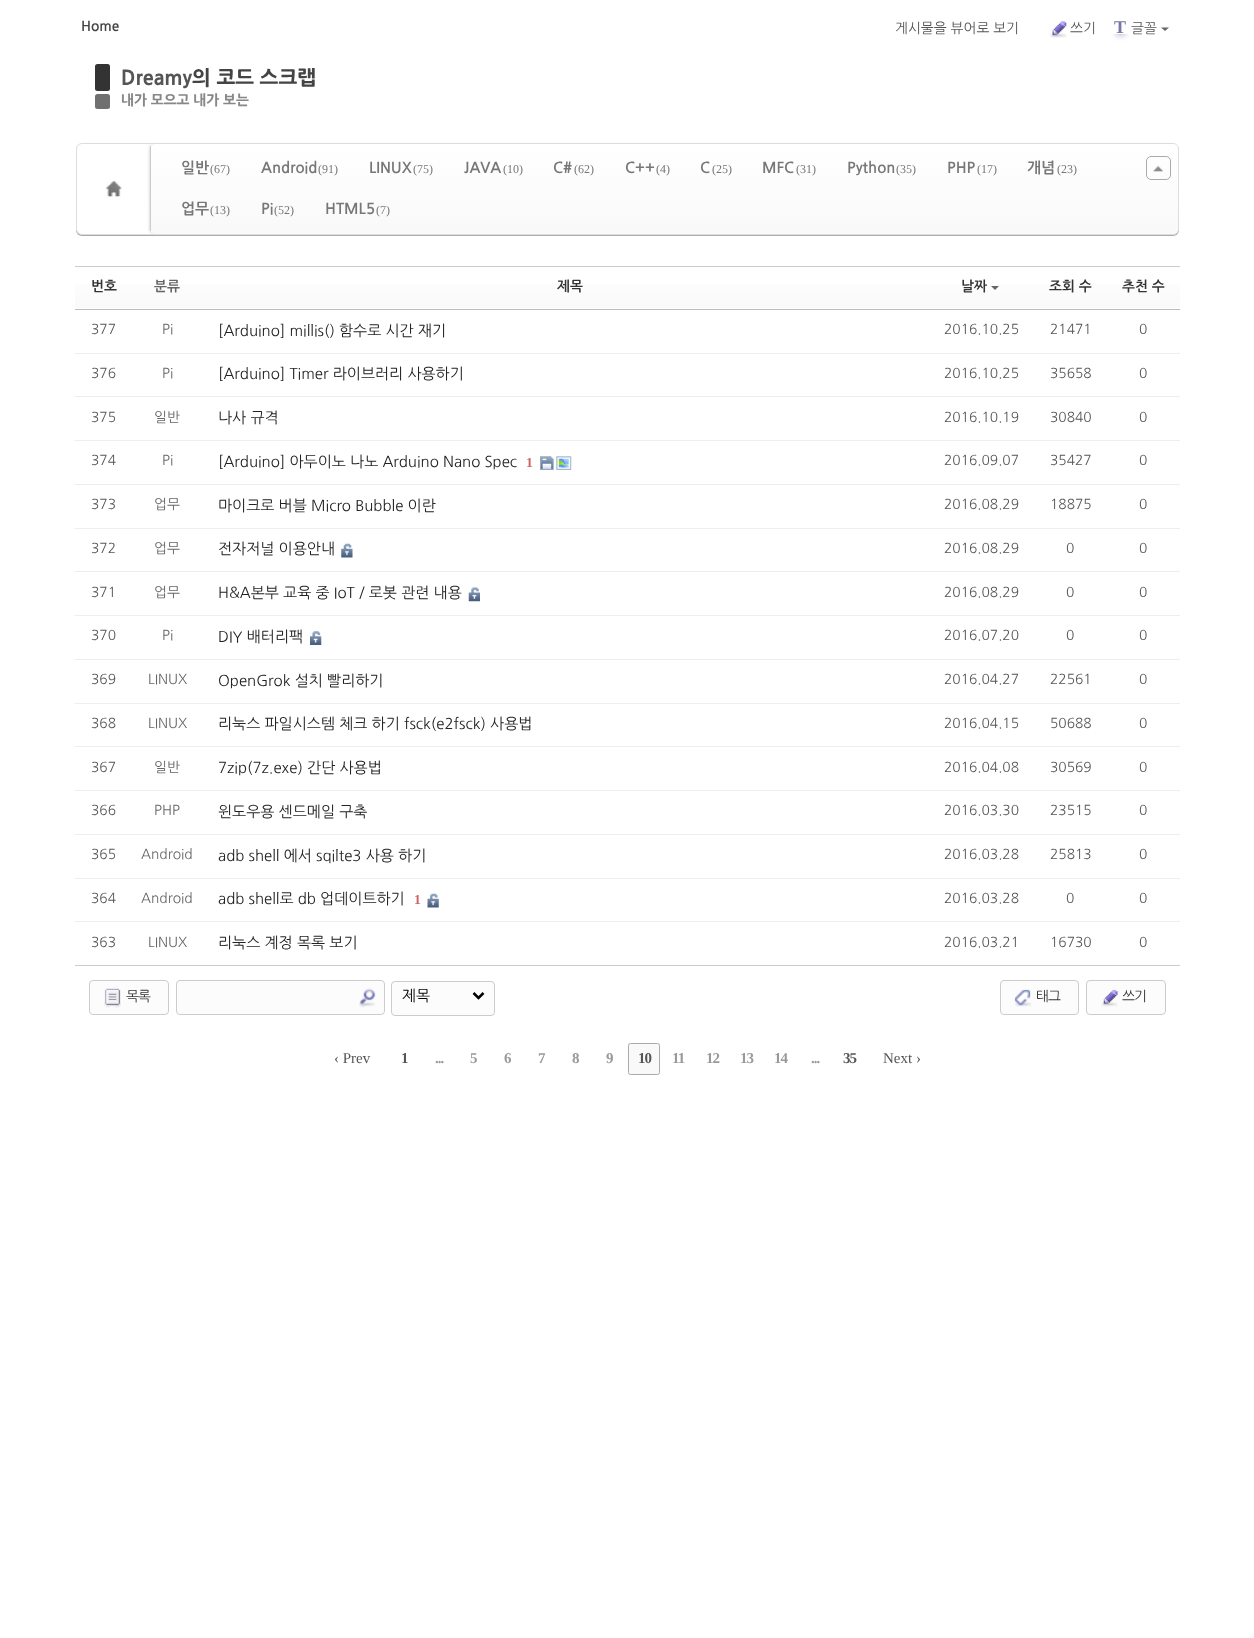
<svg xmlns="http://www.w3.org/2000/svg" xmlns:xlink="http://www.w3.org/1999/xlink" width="1254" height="1638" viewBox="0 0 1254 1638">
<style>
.cls-1{font:bold 13.75px NanumGothic;fill:#444444}
.cls-2{font:13.75px NanumGothic;fill:#555555}
.cls-3{font:bold 18px Liberation Serif;fill:#7777aa}
.cls-4{font:800 20px NanumGothic;fill:#555555}
.cls-5{font:800 20px NanumGothic;fill:#444444}
.cls-6{font:800 13.75px NanumGothic;fill:#888888}
.cls-7{font:bold 15px NanumGothic;fill:#777777}
.cls-8{font:12px Liberation Serif;fill:#777777}
.cls-9{font:bold 13.75px NanumGothic;fill:#333333}
.cls-10{font:bold 13.75px NanumGothic;fill:#666666}
.cls-11{font:13.75px NanumGothic;fill:#666666}
.cls-12{font:15px NanumGothic;fill:#222222}
.cls-13{font:bold 13.75px Liberation Serif;fill:#cc6666}
.cls-14{font:13.75px NanumGothic;letter-spacing:-1px;fill:#333333}
.cls-15{font:15px NanumGothic;fill:#000000}
.cls-16{font:15px Liberation Serif;fill:#555555}
.cls-17{font:bold 15px Liberation Serif;letter-spacing:-1px;fill:#555555}
.cls-18{font:bold 15px Liberation Serif;letter-spacing:-1px;fill:#999999}
</style>
<defs>
<clipPath id="clip1"><path d="M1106 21H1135V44H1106ZM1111 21H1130V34H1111Z" clip-rule="evenodd"/></clipPath>
<linearGradient id="g1" gradientUnits="userSpaceOnUse" x1="664" y1="144" x2="664" y2="234"><stop offset="0" stop-color="#ffffff"/><stop offset="1" stop-color="#f9f9f9"/></linearGradient>
<linearGradient id="g2" gradientUnits="userSpaceOnUse" x1="628" y1="266" x2="628" y2="310"><stop offset="0" stop-color="#ffffff"/><stop offset="1" stop-color="#f9f9f9"/></linearGradient>
</defs>
<rect width="100%" height="100%" fill="#ffffff"/>
<image xlink:href="image0.png" x="1050" y="21" width="17" height="17"/>
<g clip-path="url(#clip1)">
<rect fill="#666699" filter="blur(3px)" x="1116" y="31" width="9" height="3"/>
</g>
<path fill="#666666" d="M1161 27.5H1169L1165 31Z"/>
<rect fill="#333333" x="95" y="64" width="15" height="27" rx="2.5"/>
<rect fill="#707070" x="95" y="94" width="15" height="15" rx="2.5"/>
<rect fill="#aaaaaa" filter="blur(0.5px)" x="76" y="144" width="1103" height="92" rx="6"/>
<rect fill="#ffffff" stroke="#dddddd" x="76.5" y="143.5" width="1102" height="91" rx="5.5"/>
<image xlink:href="image1.png" x="106" y="181" width="16" height="16"/>
<rect fill="#dddddd" filter="blur(1px)" x="149" y="144" width="1027" height="90" rx="5"/>
<rect fill="url(#g1)" x="150" y="144" width="1028" height="90" rx="5"/>
<rect fill="#cccccc" x="150" y="146" width="1" height="85"/>
<rect fill="none" stroke="#aaaaaa" x="1146.5" y="156.5" width="24" height="23" rx="4.5"/>
<image xlink:href="image2.png" x="1153" y="166" width="10" height="6"/>
<rect fill="url(#g2)" x="75" y="284" width="1105" height="24"/>
<rect fill="#cccccc" x="75" y="266" width="1105" height="1"/>
<rect fill="#bbbbbb" x="75" y="309" width="1105" height="1"/>
<path fill="#666666" d="M991 286H999L995 290Z"/>
<rect fill="#eeeeee" x="75" y="353" width="1105" height="1"/>
<rect fill="#eeeeee" x="75" y="396" width="1105" height="1"/>
<rect fill="#eeeeee" x="75" y="440" width="1105" height="1"/>
<rect fill="#eeeeee" x="75" y="484" width="1105" height="1"/>
<image xlink:href="image3.png" x="540" y="456" width="14" height="14"/>
<image xlink:href="image4.png" x="556" y="456" width="16" height="14"/>
<rect fill="#eeeeee" x="75" y="528" width="1105" height="1"/>
<rect fill="#eeeeee" x="75" y="571" width="1105" height="1"/>
<image xlink:href="image5.png" x="341" y="543" width="12" height="15"/>
<rect fill="#eeeeee" x="75" y="615" width="1105" height="1"/>
<image xlink:href="image6.png" x="468" y="587" width="12" height="15"/>
<rect fill="#eeeeee" x="75" y="659" width="1105" height="1"/>
<image xlink:href="image7.png" x="310" y="631" width="12" height="14"/>
<rect fill="#eeeeee" x="75" y="703" width="1105" height="1"/>
<rect fill="#eeeeee" x="75" y="746" width="1105" height="1"/>
<rect fill="#eeeeee" x="75" y="790" width="1105" height="1"/>
<rect fill="#eeeeee" x="75" y="834" width="1105" height="1"/>
<rect fill="#eeeeee" x="75" y="878" width="1105" height="1"/>
<rect fill="#eeeeee" x="75" y="921" width="1105" height="1"/>
<image xlink:href="image8.png" x="427" y="893" width="12" height="15"/>
<rect fill="#cccccc" x="75" y="965" width="1105" height="1"/>
<rect fill="#fcfcfc" stroke="#cccccc" x="89.5" y="980.5" width="79" height="34" rx="3.5"/>
<image xlink:href="image9.png" x="104" y="988" width="17" height="20"/>
<rect fill="#fcfcfc" stroke="#cccccc" x="176.5" y="980.5" width="208" height="34" rx="3.5"/>
<image xlink:href="image10.png" x="359" y="988" width="17" height="20"/>
<rect fill="#fcfcfc" stroke="#cccccc" x="391.5" y="981.5" width="103" height="34" rx="3.5"/>
<path fill="none" stroke="#000000" stroke-width="2.5" d="M473.5 993L478.5 998L483.5 993"/>
<rect fill="#fcfcfc" stroke="#cccccc" x="1000.5" y="980.5" width="78" height="34" rx="3.5"/>
<image xlink:href="image11.png" x="1014" y="989" width="18" height="18"/>
<rect fill="#fcfcfc" stroke="#cccccc" x="1086.5" y="980.5" width="79" height="34" rx="3.5"/>
<image xlink:href="image12.png" x="1101" y="989" width="17" height="18"/>
<rect fill="#f9f9f9" stroke="#aaaaaa" x="628.5" y="1043.5" width="31" height="31" rx="2"/>
<text class="cls-1" x="81" y="31">Home</text>
<text class="cls-2" x="895" y="33">게시물을 뷰어로 보기</text>
<text class="cls-2" x="1070" y="33">쓰기</text>
<text class="cls-3" x="1114" y="33">T</text>
<text class="cls-2" x="1131" y="33">글꼴</text>
<text class="cls-4" x="121" y="85">Dreamy</text>
<text class="cls-5" x="192" y="85">의 코드 스크랩</text>
<text class="cls-6" x="121" y="105">내가 모으고 내가 보는</text>
<text class="cls-7" x="181" y="173">일반</text>
<text class="cls-8" x="210" y="173">(67)</text>
<text class="cls-7" x="261" y="173">Android</text>
<text class="cls-8" x="318" y="173">(91)</text>
<text class="cls-7" x="369" y="173">LINUX</text>
<text class="cls-8" x="413" y="173">(75)</text>
<text class="cls-7" x="464" y="173">JAVA</text>
<text class="cls-8" x="503" y="173">(10)</text>
<text class="cls-7" x="553" y="173">C#</text>
<text class="cls-8" x="574" y="173">(62)</text>
<text class="cls-7" x="625" y="173">C++</text>
<text class="cls-8" x="656" y="173">(4)</text>
<text class="cls-7" x="700" y="173">C</text>
<text class="cls-8" x="712" y="173">(25)</text>
<text class="cls-7" x="762" y="173">MFC</text>
<text class="cls-8" x="796" y="173">(31)</text>
<text class="cls-7" x="847" y="173">Python</text>
<text class="cls-8" x="896" y="173">(35)</text>
<text class="cls-7" x="947" y="173">PHP</text>
<text class="cls-8" x="977" y="173">(17)</text>
<text class="cls-7" x="1027" y="173">개념</text>
<text class="cls-8" x="1057" y="173">(23)</text>
<text class="cls-7" x="181" y="214">업무</text>
<text class="cls-8" x="210" y="214">(13)</text>
<text class="cls-7" x="261" y="214">Pi</text>
<text class="cls-8" x="274" y="214">(52)</text>
<text class="cls-7" x="325" y="214">HTML5</text>
<text class="cls-8" x="376" y="214">(7)</text>
<text class="cls-9" x="91" y="291">번호</text>
<text class="cls-10" x="154" y="291">분류</text>
<text class="cls-9" x="557" y="291">제목</text>
<text class="cls-9" x="961" y="291">날짜</text>
<text class="cls-9" x="1049" y="291">조회 수</text>
<text class="cls-9" x="1122" y="291">추천 수</text>
<text class="cls-2" x="91" y="334">377</text>
<text class="cls-11" x="162" y="334">Pi</text>
<text class="cls-12" x="218" y="336">[Arduino] millis() 함수로 시간 재기</text>
<text class="cls-2" x="944" y="334">2016.10.25</text>
<text class="cls-2" x="1050" y="334">21471</text>
<text class="cls-2" x="1139" y="334">0</text>
<text class="cls-2" x="91" y="378">376</text>
<text class="cls-11" x="162" y="378">Pi</text>
<text class="cls-12" x="218" y="379">[Arduino] Timer 라이브러리 사용하기</text>
<text class="cls-2" x="944" y="378">2016.10.25</text>
<text class="cls-2" x="1050" y="378">35658</text>
<text class="cls-2" x="1139" y="378">0</text>
<text class="cls-2" x="91" y="422">375</text>
<text class="cls-11" x="154" y="422">일반</text>
<text class="cls-12" x="218" y="423">나사 규격</text>
<text class="cls-2" x="944" y="422">2016.10.19</text>
<text class="cls-2" x="1050" y="422">30840</text>
<text class="cls-2" x="1139" y="422">0</text>
<text class="cls-2" x="91" y="465">374</text>
<text class="cls-11" x="162" y="465">Pi</text>
<text class="cls-12" x="218" y="467">[Arduino] 아두이노 나노 Arduino Nano Spec</text>
<text class="cls-13" x="526" y="467">1</text>
<text class="cls-2" x="944" y="465">2016.09.07</text>
<text class="cls-2" x="1050" y="465">35427</text>
<text class="cls-2" x="1139" y="465">0</text>
<text class="cls-2" x="91" y="509">373</text>
<text class="cls-11" x="154" y="509">업무</text>
<text class="cls-12" x="218" y="511">마이크로 버블 Micro Bubble 이란</text>
<text class="cls-2" x="944" y="509">2016.08.29</text>
<text class="cls-2" x="1050" y="509">18875</text>
<text class="cls-2" x="1139" y="509">0</text>
<text class="cls-2" x="91" y="553">372</text>
<text class="cls-11" x="154" y="553">업무</text>
<text class="cls-12" x="218" y="554">전자저널 이용안내</text>
<text class="cls-2" x="944" y="553">2016.08.29</text>
<text class="cls-2" x="1066" y="553">0</text>
<text class="cls-2" x="1139" y="553">0</text>
<text class="cls-2" x="91" y="597">371</text>
<text class="cls-11" x="154" y="597">업무</text>
<text class="cls-12" x="218" y="598">H&amp;A본부 교육 중 IoT / 로봇 관련 내용</text>
<text class="cls-2" x="944" y="597">2016.08.29</text>
<text class="cls-2" x="1066" y="597">0</text>
<text class="cls-2" x="1139" y="597">0</text>
<text class="cls-2" x="91" y="640">370</text>
<text class="cls-11" x="162" y="640">Pi</text>
<text class="cls-12" x="218" y="642">DIY 배터리팩</text>
<text class="cls-2" x="944" y="640">2016.07.20</text>
<text class="cls-2" x="1066" y="640">0</text>
<text class="cls-2" x="1139" y="640">0</text>
<text class="cls-2" x="91" y="684">369</text>
<text class="cls-11" x="148" y="684">LINUX</text>
<text class="cls-12" x="218" y="686">OpenGrok 설치 빨리하기</text>
<text class="cls-2" x="944" y="684">2016.04.27</text>
<text class="cls-2" x="1050" y="684">22561</text>
<text class="cls-2" x="1139" y="684">0</text>
<text class="cls-2" x="91" y="728">368</text>
<text class="cls-11" x="148" y="728">LINUX</text>
<text class="cls-12" x="218" y="729">리눅스 파일시스템 체크 하기 fsck(e2fsck) 사용법</text>
<text class="cls-2" x="944" y="728">2016.04.15</text>
<text class="cls-2" x="1050" y="728">50688</text>
<text class="cls-2" x="1139" y="728">0</text>
<text class="cls-2" x="91" y="772">367</text>
<text class="cls-11" x="154" y="772">일반</text>
<text class="cls-12" x="218" y="773">7zip(7z.exe) 간단 사용법</text>
<text class="cls-2" x="944" y="772">2016.04.08</text>
<text class="cls-2" x="1050" y="772">30569</text>
<text class="cls-2" x="1139" y="772">0</text>
<text class="cls-2" x="91" y="815">366</text>
<text class="cls-11" x="154" y="815">PHP</text>
<text class="cls-12" x="218" y="817">윈도우용 센드메일 구축</text>
<text class="cls-2" x="944" y="815">2016.03.30</text>
<text class="cls-2" x="1050" y="815">23515</text>
<text class="cls-2" x="1139" y="815">0</text>
<text class="cls-2" x="91" y="859">365</text>
<text class="cls-11" x="141" y="859">Android</text>
<text class="cls-12" x="218" y="861">adb shell 에서 sqilte3 사용 하기</text>
<text class="cls-2" x="944" y="859">2016.03.28</text>
<text class="cls-2" x="1050" y="859">25813</text>
<text class="cls-2" x="1139" y="859">0</text>
<text class="cls-2" x="91" y="903">364</text>
<text class="cls-11" x="141" y="903">Android</text>
<text class="cls-12" x="218" y="904">adb shell로 db 업데이트하기</text>
<text class="cls-13" x="414" y="904">1</text>
<text class="cls-2" x="944" y="903">2016.03.28</text>
<text class="cls-2" x="1066" y="903">0</text>
<text class="cls-2" x="1139" y="903">0</text>
<text class="cls-2" x="91" y="947">363</text>
<text class="cls-11" x="148" y="947">LINUX</text>
<text class="cls-12" x="218" y="948">리눅스 계정 목록 보기</text>
<text class="cls-2" x="944" y="947">2016.03.21</text>
<text class="cls-2" x="1050" y="947">16730</text>
<text class="cls-2" x="1139" y="947">0</text>
<text class="cls-14" x="126" y="1001">목록</text>
<text class="cls-15" x="402" y="1001">제목</text>
<text class="cls-14" x="1036" y="1001">태그</text>
<text class="cls-14" x="1122" y="1001">쓰기</text>
<text class="cls-16" x="334" y="1063">‹ Prev</text>
<text class="cls-17" x="401" y="1063">1</text>
<text class="cls-18" x="435" y="1063">...</text>
<text class="cls-18" x="470" y="1063">5</text>
<text class="cls-18" x="504" y="1063">6</text>
<text class="cls-18" x="538" y="1063">7</text>
<text class="cls-18" x="572" y="1063">8</text>
<text class="cls-18" x="606" y="1063">9</text>
<text class="cls-17" x="638" y="1063">10</text>
<text class="cls-18" x="672" y="1063">11</text>
<text class="cls-18" x="706" y="1063">12</text>
<text class="cls-18" x="740" y="1063">13</text>
<text class="cls-18" x="774" y="1063">14</text>
<text class="cls-18" x="811" y="1063">...</text>
<text class="cls-17" x="843" y="1063">35</text>
<text class="cls-16" x="883" y="1063">Next ›</text>
</svg>
